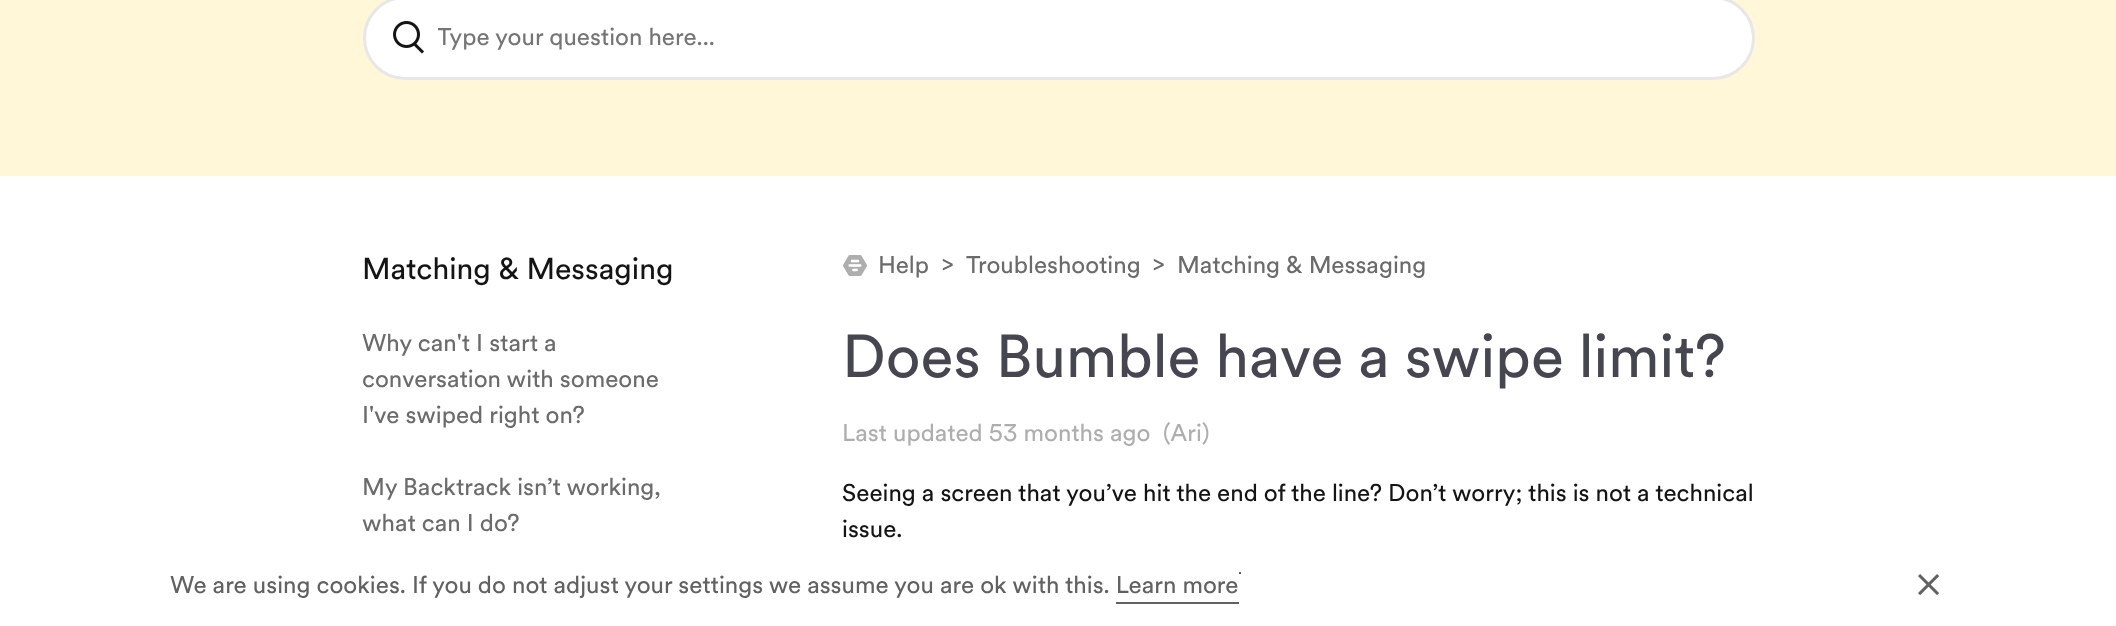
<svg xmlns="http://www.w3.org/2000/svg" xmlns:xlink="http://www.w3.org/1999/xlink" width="2116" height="626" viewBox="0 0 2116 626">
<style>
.cls-1{font:24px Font;fill:#757575}
.cls-2{font:30px Font;fill:#141414}
.cls-3{font:24px Font;fill:#6b6b6b}
.cls-4{font:60px Font;fill:#454650}
.cls-5{font:24px Font;fill:#aeaeae}
.cls-6{font:24px Font;fill:#141414}
.cls-7{font:24px Font;fill:#616161}
</style>
<defs>
<clipPath id="clip1"><rect x="438" y="20" width="1284" height="34"/></clipPath>
</defs>
<rect width="100%" height="100%" fill="#ffffff"/>
<rect fill="#fff7d8" x="0" y="0" width="2116" height="176"/>
<rect fill="#ffffff" stroke="#e7e7e7" stroke-width="3" x="364.5" y="-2.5" width="1389" height="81" rx="40.5"/>
<image xlink:href="image0.png" x="393" y="21" width="31" height="33"/>
<rect fill="#ffffff" x="426" y="20" width="1326" height="36" rx="18"/>
<image xlink:href="image1.png" x="843" y="255" width="24" height="21"/>
<rect fill="#616161" x="1239" y="572" width="2" height="2"/>
<rect fill="#616161" x="1116" y="602" width="123" height="2"/>
<image xlink:href="image2.png" x="1918" y="574" width="22" height="22"/>
<g clip-path="url(#clip1)">
<text class="cls-1" x="437" y="45">Type your question here...</text>
</g>
<text class="cls-2" x="362" y="279">Matching &amp; Messaging</text>
<text class="cls-3"><tspan x="362" y="351">Why can't I start a</tspan><tspan x="362" y="387">conversation with someone</tspan><tspan x="362" y="423">I've swiped right on?</tspan></text>
<text class="cls-3"><tspan x="362" y="495">My Backtrack isn’t working,</tspan><tspan x="362" y="531">what can I do?</tspan></text>
<text class="cls-3" x="878" y="273">Help</text>
<text class="cls-3" x="941" y="273">&gt;</text>
<text class="cls-3" x="966" y="273">Troubleshooting</text>
<text class="cls-3" x="1152" y="273">&gt;</text>
<text class="cls-3" x="1177" y="273">Matching &amp; Messaging</text>
<text class="cls-4" x="842" y="377">Does Bumble have a swipe limit?</text>
<text class="cls-5" x="842" y="441">Last updated 53 months ago</text>
<text class="cls-5" x="1163" y="441">(Ari)</text>
<text class="cls-6"><tspan x="842" y="501">Seeing a screen that you’ve hit the end of the line? Don’t worry; this is not a technical</tspan><tspan x="842" y="537">issue.</tspan></text>
<text class="cls-7" x="170" y="593">We are using cookies. If you do not adjust your settings we assume you are ok with this. Learn more</text>
</svg>
